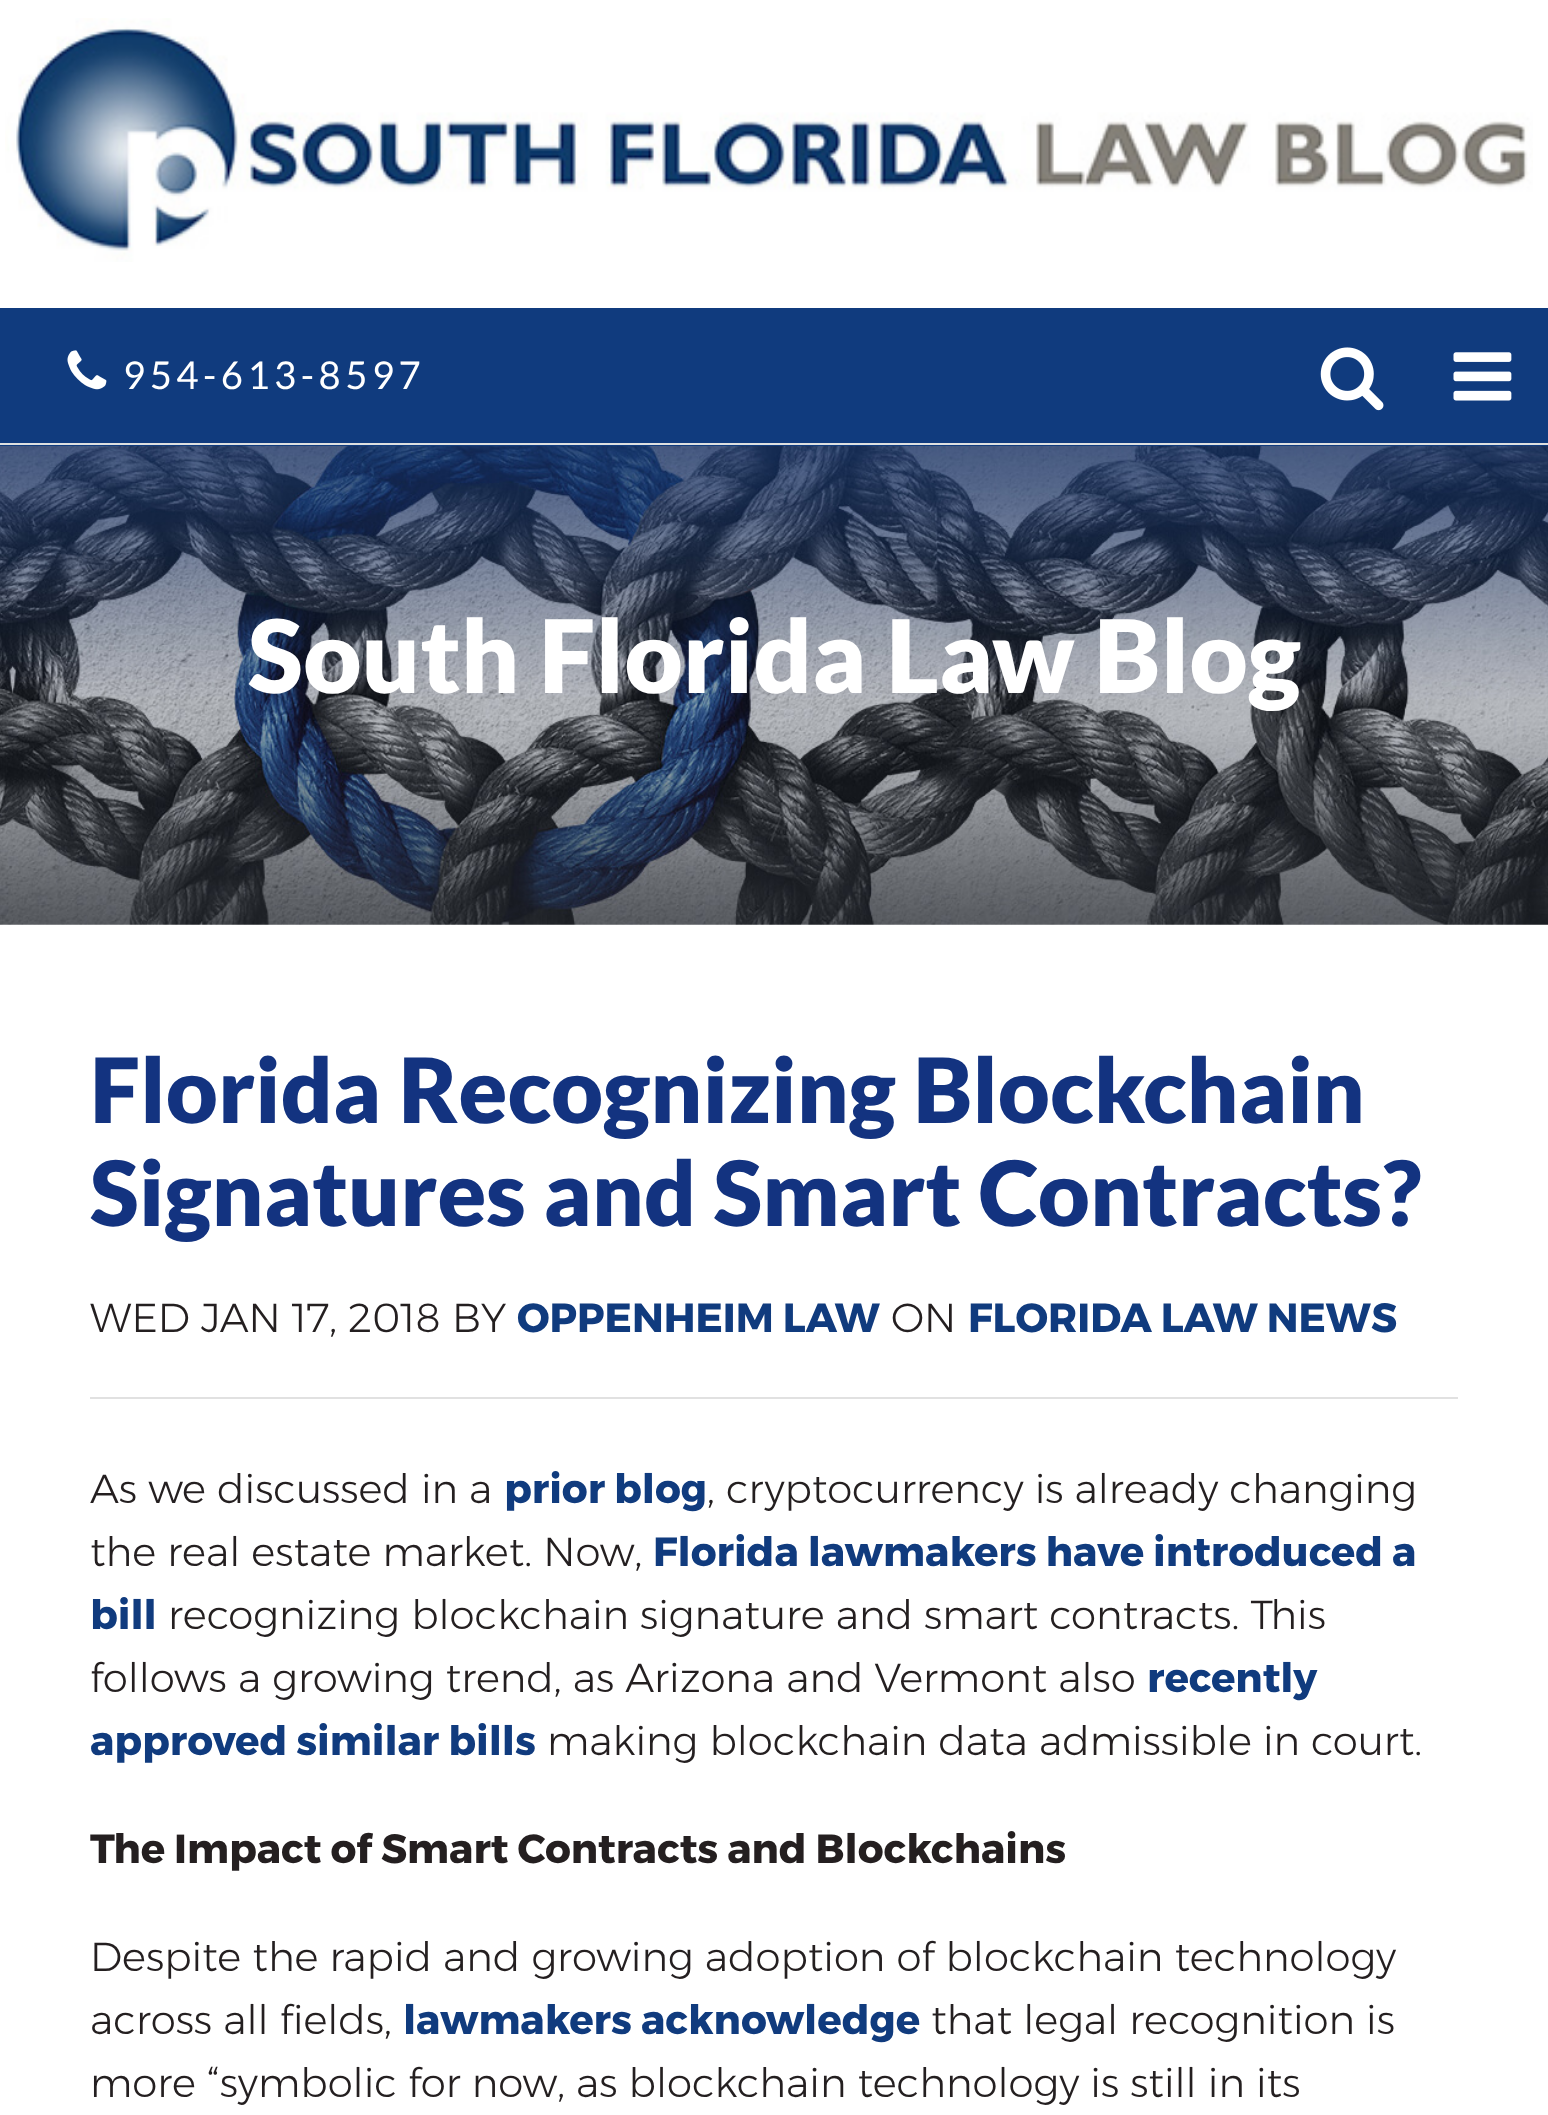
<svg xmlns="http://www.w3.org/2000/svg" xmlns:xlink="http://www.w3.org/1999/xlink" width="1548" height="2115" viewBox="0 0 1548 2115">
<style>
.cls-1{font:38.25px Lato;letter-spacing:4.5px;fill:#ffffff}
.cls-2{font:900 101.25px Lato;fill:#ffffff}
.cls-3{font:900 90px Lato;fill:#133380}
.cls-4{font:300 40.5px Montserrat;fill:#241f20}
.cls-5{font:bold 40.5px Montserrat;fill:#103b7e}
.cls-6{font:bold 40.5px Montserrat;fill:#241f20}
</style>
<rect width="100%" height="100%" fill="#ffffff"/>
<rect fill="#103b7e" x="0" y="308" width="1548" height="138"/>
<rect fill="#dee0e0" x="0" y="443" width="1548" height="2"/>
<image xlink:href="image0.png" x="5" y="18" width="1528" height="244"/>
<image xlink:href="image1.png" x="67" y="350" width="40" height="40"/>
<image xlink:href="image2.png" x="1320" y="347" width="64" height="64"/>
<image xlink:href="image3.png" x="1453" y="352" width="59" height="49"/>
<image xlink:href="image4.png" x="0" y="446" width="1548" height="479"/>
<rect fill="#e1e1e1" x="90" y="1397" width="1368" height="2"/>
<text class="cls-1" x="123" y="389">954-613-8597</text>
<text class="cls-2" x="248" y="693">South Florida Law Blog</text>
<text class="cls-3"><tspan x="90" y="1123">Florida Recognizing Blockchain</tspan><tspan x="90" y="1226">Signatures and Smart Contracts?</tspan></text>
<text class="cls-4" x="90" y="1332">WED JAN 17, 2018 BY</text>
<text class="cls-5" x="517" y="1332">OPPENHEIM LAW</text>
<text class="cls-4" x="891" y="1332">ON</text>
<text class="cls-5" x="968" y="1332">FLORIDA LAW NEWS</text>
<text class="cls-4" x="90" y="1503">As we discussed in a</text>
<text class="cls-5" x="504" y="1503">prior blog</text>
<text class="cls-4" x="707" y="1503">, cryptocurrency is already changing</text>
<text class="cls-4" x="90" y="1566">the real estate market. Now,</text>
<text class="cls-5" x="653" y="1566">Florida lawmakers have introduced a</text>
<text class="cls-5" x="90" y="1629">bill</text>
<text class="cls-4" x="168" y="1629">recognizing blockchain signature and smart contracts. This</text>
<text class="cls-4" x="90" y="1692">follows a growing trend, as Arizona and Vermont also</text>
<text class="cls-5" x="1147" y="1692">recently</text>
<text class="cls-5" x="90" y="1755">approved similar bills</text>
<text class="cls-4" x="547" y="1755">making blockchain data admissible in court.</text>
<text class="cls-6" x="90" y="1863">The Impact of Smart Contracts and Blockchains</text>
<text class="cls-4"><tspan x="90" y="1971">Despite the rapid and growing adoption of blockchain technology</tspan><tspan x="90" y="2034">across all fields,</tspan></text>
<text class="cls-5" x="403" y="2034">lawmakers acknowledge</text>
<text class="cls-4" x="931" y="2034">that legal recognition is</text>
<text class="cls-4" x="90" y="2097">more “symbolic for now, as blockchain technology is still in its</text>
</svg>
